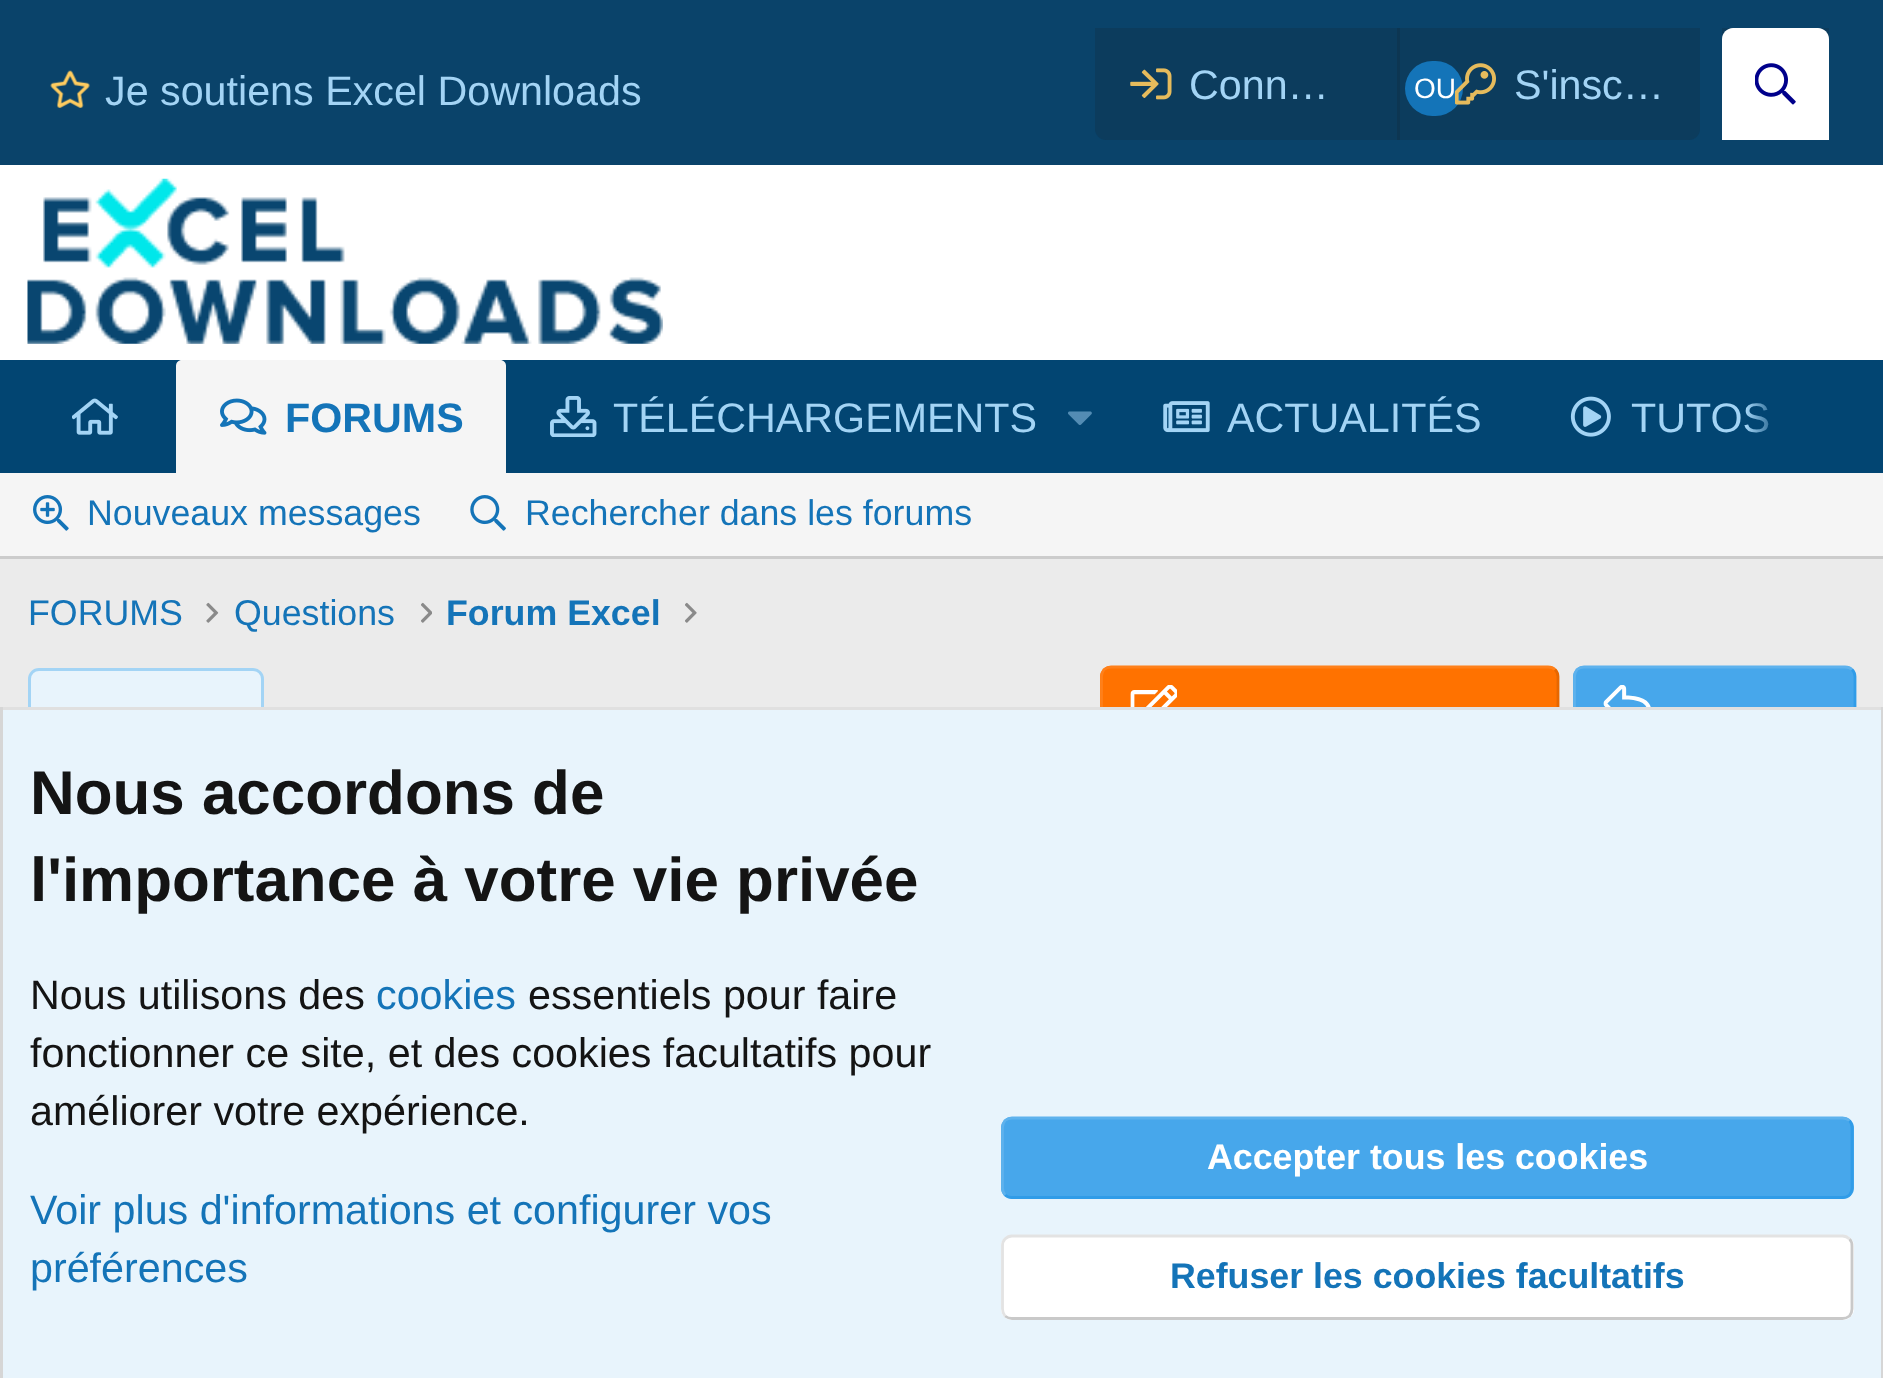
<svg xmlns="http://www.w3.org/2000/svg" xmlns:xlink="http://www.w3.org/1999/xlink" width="1883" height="1378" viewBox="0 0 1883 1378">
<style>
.cls-1{font:41.25px Liberation Sans;fill:#a3d4f5}
.cls-2{font:28px Liberation Sans;fill:#ffffff}
.cls-3{font:bold 41.25px Liberation Sans;fill:#1474b8}
.cls-4{font:35.75px Liberation Sans;fill:#1474b8}
.cls-5{font:bold 35.75px Liberation Sans;fill:#1474b8}
.cls-6{font:bold 61.9px Liberation Sans;fill:#141414}
.cls-7{font:41.25px Liberation Sans;fill:#141414}
.cls-8{font:41.25px Liberation Sans;fill:#1474b8}
.cls-9{font:bold 35.75px Liberation Sans;fill:#ffffff}
</style>
<defs>
<linearGradient id="g1" gradientUnits="userSpaceOnUse" x1="1746" y1="417" x2="1856" y2="417"><stop offset="0" stop-color="#024572" stop-opacity="0"/><stop offset="0.33" stop-color="#024572"/></linearGradient>
</defs>
<rect width="100%" height="100%" fill="#ebebeb"/>
<rect fill="#0a436a" x="0" y="0" width="1883" height="165"/>
<image xlink:href="image0.png" x="50" y="70" width="40" height="38"/>
<path fill="#0c3c5d" d="M1095 28H1700V129C1700 135 1695 140 1689 140H1106C1100 140 1095 135 1095 129Z"/>
<image xlink:href="image1.png" x="1130" y="68" width="42" height="32"/>
<rect fill="#1474b8" x="1405" y="61" width="58" height="55" rx="27.5"/>
<rect fill="#0d3652" x="1397" y="28" width="3" height="112"/>
<image xlink:href="image2.png" x="1455" y="63" width="41" height="42"/>
<rect fill="#0c3c5d" x="1722" y="28" width="107" height="11"/>
<path fill="#ffffff" d="M1733 28H1818C1824 28 1829 33 1829 39V140H1722V39C1722 33 1727 28 1733 28Z"/>
<image xlink:href="image3.png" x="1755" y="63" width="41" height="42"/>
<rect fill="#ffffff" x="0" y="165" width="1883" height="195"/>
<image xlink:href="image4.png" x="27" y="178" width="636" height="166"/>
<rect fill="#024572" x="0" y="360" width="1883" height="113"/>
<image xlink:href="image5.png" x="72" y="398" width="46" height="37"/>
<path fill="#f5f5f5" d="M182 360H500C503.5 360 506 362.5 506 366V473H176V366C176 362.5 178.5 360 182 360Z"/>
<image xlink:href="image6.png" x="220" y="398" width="47" height="37"/>
<image xlink:href="image7.png" x="550" y="396" width="47" height="41"/>
<image xlink:href="image8.png" x="1068" y="411" width="24" height="14"/>
<image xlink:href="image9.png" x="1163" y="401" width="47" height="32"/>
<image xlink:href="image10.png" x="1570" y="396" width="41" height="41"/>
<rect fill="#f5f5f5" x="0" y="473" width="1883" height="83"/>
<rect fill="#cccccc" x="0" y="556" width="1883" height="3"/>
<image xlink:href="image11.png" x="33" y="495" width="36" height="36"/>
<image xlink:href="image12.png" x="470" y="495" width="36" height="36"/>
<image xlink:href="image13.png" x="206" y="602" width="13" height="21"/>
<image xlink:href="image14.png" x="421" y="602" width="11" height="21"/>
<image xlink:href="image15.png" x="685" y="602" width="12" height="21"/>
<rect fill="#e8f4fc" stroke="#a3d4f5" stroke-width="3" x="29.5" y="669.5" width="233" height="74" rx="9.5"/>
<rect fill="#ff7200" x="1100" y="666" width="459" height="82" rx="11"/>
<path fill="none" stroke="#e66700" stroke-width="2.8" d="M1555 669.5C1557 671.5 1558 674 1558 676.5V737C1558 739.5 1557 742 1555 744C1553.5 745.5 1551 746.5 1548 746.5H1111C1108.5 746.5 1106 745.5 1104 744"/>
<path fill="none" stroke="#ff801a" stroke-width="2.8" d="M1104 744C1102.5 742 1101.5 739.5 1101.5 737V676.5C1101.5 674 1102.5 671.5 1104 669.5C1106 668 1108.5 667 1111 667H1548C1551 667 1553.5 668 1555 669.5"/>
<image xlink:href="image16.png" x="1130" y="685" width="47" height="22"/>
<rect fill="#47a7eb" x="1573" y="666" width="283" height="82" rx="11"/>
<path fill="none" stroke="#309ce8" stroke-width="2.8" d="M1852 669.5C1854 671.5 1855 674 1855 676.5V737C1855 739.5 1854 742 1852 744C1850.5 745.5 1848 746.5 1845 746.5H1584C1581.5 746.5 1579 745.5 1577 744"/>
<path fill="none" stroke="#5eb2ed" stroke-width="2.8" d="M1577 744C1575.5 742 1574.5 739.5 1574.5 737V676.5C1574.5 674 1575.5 671.5 1577 669.5C1579 668 1581.5 667 1584 667H1845C1848 667 1850.5 668 1852 669.5"/>
<image xlink:href="image17.png" x="1603" y="685" width="48" height="22"/>
<rect fill="#e8f4fc" x="3" y="710" width="1878" height="668"/>
<rect fill="#e0e0e0" x="0" y="707" width="1883" height="3"/>
<rect fill="#d6d6d6" x="1881" y="707" width="2" height="671"/>
<rect fill="#d6d6d6" x="0" y="707" width="3" height="671"/>
<rect fill="#47a7eb" x="1001" y="1117" width="853" height="82" rx="11"/>
<path fill="none" stroke="#309ce8" stroke-width="2.8" d="M1849.5 1120.5C1851 1122.5 1852 1125 1852 1127.5V1188C1852 1190.5 1851 1193 1849.5 1195C1847.5 1196.5 1845 1197.5 1842.5 1197.5H1012C1009.5 1197.5 1007 1196.5 1005 1195"/>
<path fill="none" stroke="#5eb2ed" stroke-width="2.8" d="M1005 1195C1003.5 1193 1002.5 1190.5 1002.5 1188V1127.5C1002.5 1125 1003.5 1122.5 1005 1120.5C1007 1119 1009.5 1118 1012 1118H1842.5C1845 1118 1847.5 1119 1849.5 1120.5"/>
<rect fill="#ffffff" x="1001" y="1235" width="853" height="85" rx="11"/>
<path fill="none" stroke="#c9c9c9" stroke-width="2.8" d="M1849.5 1239C1851 1240.5 1852 1243 1852 1246V1309C1852 1311.5 1851 1314 1849.5 1316C1847.5 1317.5 1845 1318.5 1842.5 1318.5H1012C1009.5 1318.5 1007 1317.5 1005 1316"/>
<path fill="none" stroke="#e3e3e3" stroke-width="2.8" d="M1005 1316C1003.5 1314 1002.5 1311.5 1002.5 1309V1246C1002.5 1243 1003.5 1240.5 1005 1239C1007 1237 1009.5 1236 1012 1236H1842.5C1845 1236 1847.5 1237 1849.5 1239"/>
<text class="cls-1" x="105" y="105">Je soutiens Excel Downloads</text>
<text class="cls-1" x="1189" y="99">Conn…</text>
<text class="cls-2" x="1414" y="98">OU</text>
<text class="cls-1" x="1514" y="99">S'insc…</text>
<text class="cls-3" x="285" y="432">FORUMS</text>
<text class="cls-1" x="613" y="432">TÉLÉCHARGEMENTS</text>
<text class="cls-1" x="1227" y="432">ACTUALITÉS</text>
<text class="cls-1" x="1631" y="432">TUTOS</text>
<rect fill="url(#g1)" x="1747" y="403" width="21" height="30"/>
<text class="cls-4" x="87" y="525">Nouveaux messages</text>
<text class="cls-4" x="525" y="525">Rechercher dans les forums</text>
<text class="cls-4" x="28" y="625">FORUMS</text>
<text class="cls-4" x="234" y="625">Questions</text>
<text class="cls-5" x="446" y="625">Forum Excel</text>
<text class="cls-6"><tspan x="30" y="814">Nous accordons de</tspan><tspan x="30" y="901">l'importance à votre vie privée</tspan></text>
<text class="cls-7" x="30" y="1009">Nous utilisons des</text>
<text class="cls-8" x="376" y="1009">cookies</text>
<text class="cls-7" x="528" y="1009">essentiels pour faire</text>
<text class="cls-7"><tspan x="30" y="1067">fonctionner ce site, et des cookies facultatifs pour</tspan><tspan x="30" y="1125">améliorer votre expérience.</tspan></text>
<text class="cls-8"><tspan x="30" y="1224">Voir plus d'informations et configurer vos</tspan><tspan x="30" y="1282">préférences</tspan></text>
<text class="cls-9" x="1207" y="1169">Accepter tous les cookies</text>
<text class="cls-5" x="1170" y="1288">Refuser les cookies facultatifs</text>
</svg>
